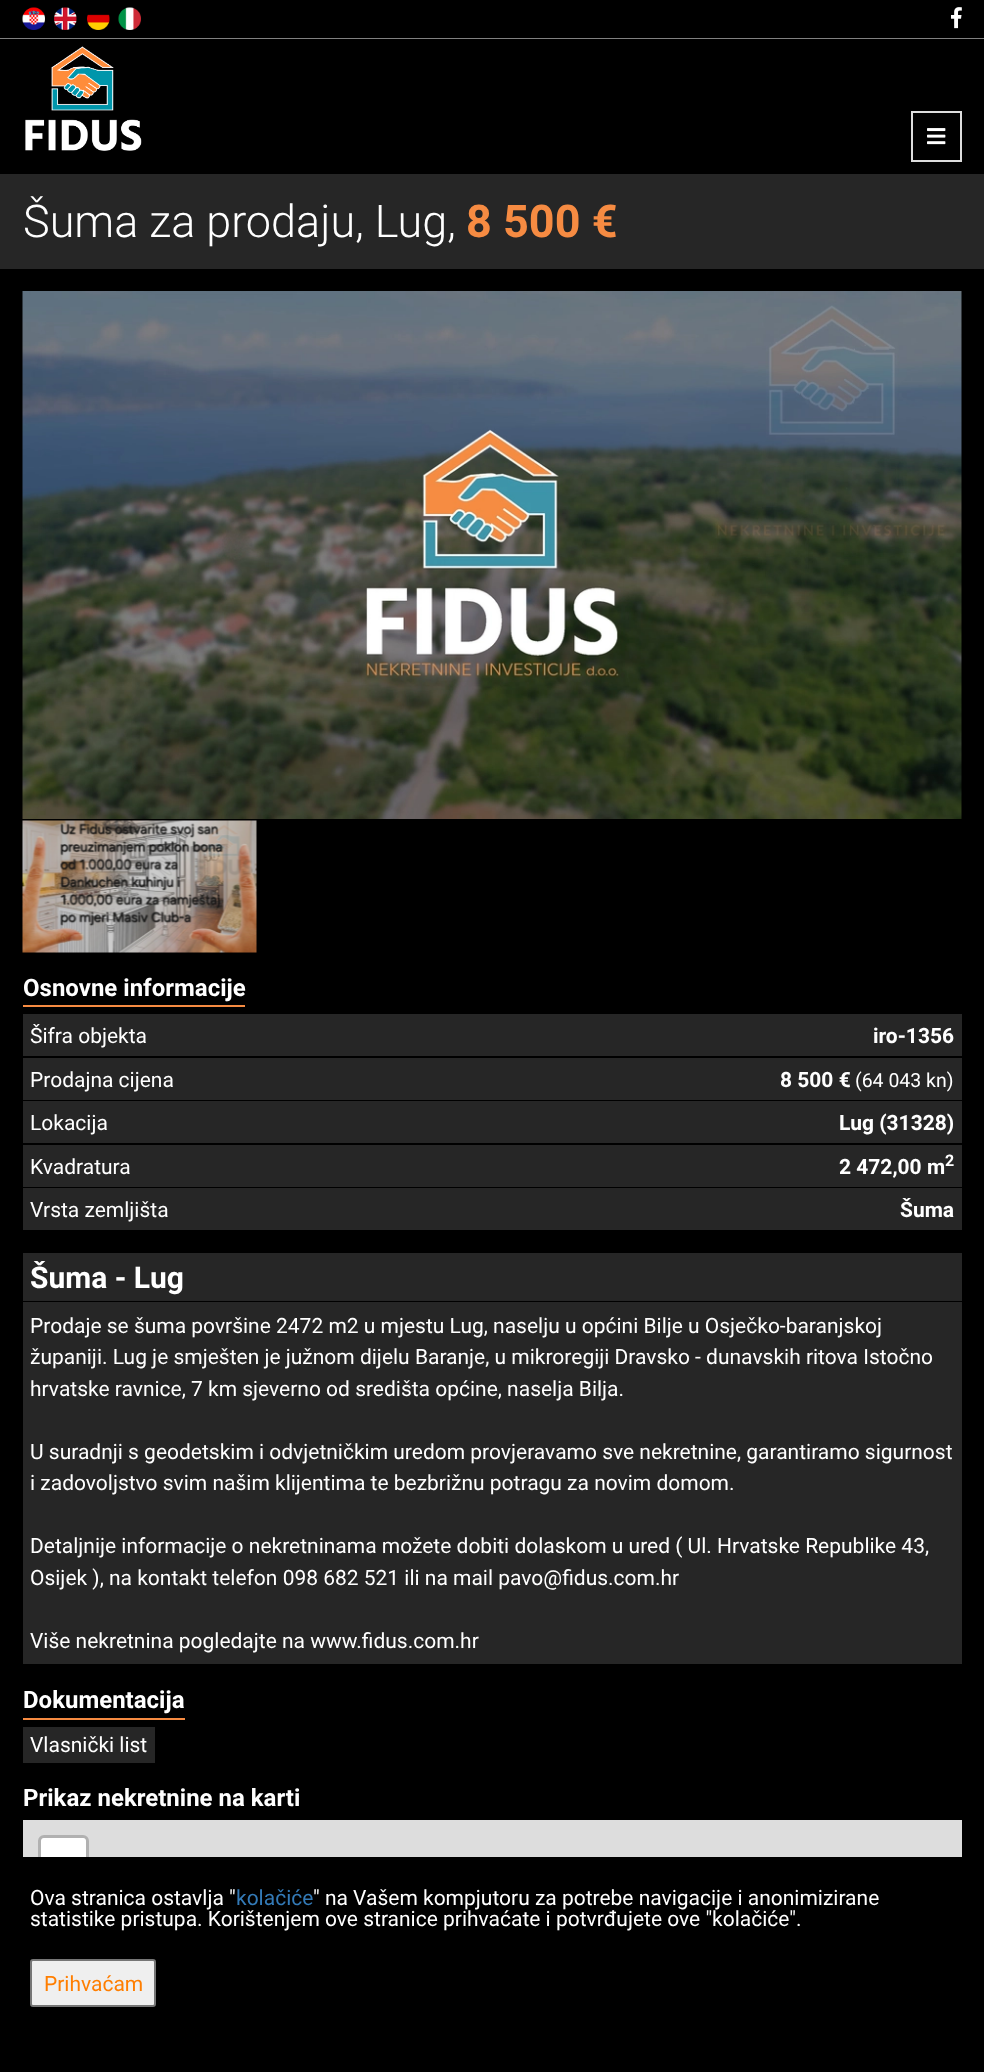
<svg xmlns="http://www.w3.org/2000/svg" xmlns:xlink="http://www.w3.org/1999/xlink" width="984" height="2072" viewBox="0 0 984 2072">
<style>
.cls-1{font:300 45px Roboto;fill:#ffffff}
.cls-2{font:bold 45px Roboto;fill:#f68b42}
.cls-3{font:bold 24px Roboto;fill:#ffffff}
.cls-4{font:21px Roboto;fill:#ffffff}
.cls-5{font:bold 21px Roboto;fill:#ffffff}
.cls-6{font:19.5px Roboto;fill:#ffffff}
.cls-7{font:bold 16px Roboto;fill:#ffffff}
.cls-8{font:bold 30px Roboto;fill:#ffffff}
.cls-9{font:21px Roboto;fill:#337ab7}
.cls-10{font:21px Roboto;fill:#ff7e00}
</style>
<rect width="100%" height="100%" fill="#000000"/>
<rect fill="#808080" x="0" y="38" width="984" height="1"/>
<image xlink:href="image0.png" x="22" y="7" width="23" height="23"/>
<image xlink:href="image1.png" x="54" y="7" width="23" height="23"/>
<image xlink:href="image2.png" x="87" y="14" width="23" height="16"/>
<image xlink:href="image3.png" x="118" y="7" width="23" height="23"/>
<image xlink:href="image4.png" x="951" y="7" width="11" height="22"/>
<image xlink:href="image5.png" x="25" y="46" width="117" height="105"/>
<rect fill="none" stroke="#dddddd" stroke-width="2" x="912" y="112" width="49" height="49"/>
<image xlink:href="image6.png" x="927" y="128" width="19" height="17"/>
<rect fill="#262626" x="0" y="174" width="984" height="95"/>
<image xlink:href="image7.png" x="22" y="291" width="940" height="528"/>
<image xlink:href="image8.png" x="22" y="820" width="235" height="133"/>
<rect fill="#f68b42" x="23" y="1005" width="222" height="2"/>
<rect fill="#262626" x="23" y="1014" width="939" height="42"/>
<rect fill="#262626" x="23" y="1058" width="939" height="42"/>
<rect fill="#262626" x="23" y="1101" width="939" height="42"/>
<rect fill="#262626" x="23" y="1145" width="939" height="42"/>
<rect fill="#262626" x="23" y="1188" width="939" height="42"/>
<rect fill="#262626" x="23" y="1253" width="939" height="48"/>
<rect fill="#262626" x="23" y="1302" width="939" height="362"/>
<rect fill="#f68b42" x="23" y="1718" width="162" height="2"/>
<rect fill="#262626" x="23" y="1727" width="132" height="36"/>
<rect fill="#dddddd" x="23" y="1820" width="939" height="37"/>
<rect fill="none" stroke="#b1b1b1" stroke-width="3" x="39.5" y="1836.5" width="48" height="93" rx="4.5"/>
<path fill="#ffffff" d="M44 1838H83C84.5 1838 86 1839.5 86 1841V1883H41V1841C41 1839.5 42.5 1838 44 1838Z"/>
<rect fill="#000000" x="38" y="1857" width="51" height="74"/>
<rect fill="#efefef" stroke="#767676" stroke-width="2" x="31" y="1960" width="124" height="46" rx="2"/>
<text class="cls-1" x="23" y="237">Šuma za prodaju, Lug,</text>
<text class="cls-2" x="466" y="237">8 500 €</text>
<text class="cls-3" x="23" y="996">Osnovne informacije</text>
<text class="cls-4" x="30" y="1043">Šifra objekta</text>
<text class="cls-5" x="873" y="1043">iro-1356</text>
<text class="cls-4" x="30" y="1087">Prodajna cijena</text>
<text class="cls-5" x="780" y="1087">8 500 €</text>
<text class="cls-6" x="855" y="1087">(64 043 kn)</text>
<text class="cls-4" x="30" y="1130">Lokacija</text>
<text class="cls-5" x="839" y="1130">Lug (31328)</text>
<text class="cls-4" x="30" y="1174">Kvadratura</text>
<text class="cls-5" x="839" y="1174">2 472,00 m</text>
<text class="cls-7" x="945" y="1166">2</text>
<text class="cls-4" x="30" y="1217">Vrsta zemljišta</text>
<text class="cls-5" x="900" y="1217">Šuma</text>
<text class="cls-8" x="30" y="1288">Šuma - Lug</text>
<text class="cls-4"><tspan x="30" y="1333">Prodaje se šuma površine 2472 m2 u mjestu Lug, naselju u općini Bilje u Osječko-baranjskoj</tspan><tspan x="30" y="1364">županiji. Lug je smješten je južnom dijelu Baranje, u mikroregiji Dravsko - dunavskih ritova Istočno</tspan><tspan x="30" y="1396">hrvatske ravnice, 7 km sjeverno od središta općine, naselja Bilja.</tspan></text>
<text class="cls-4"><tspan x="30" y="1459">U suradnji s geodetskim i odvjetničkim uredom provjeravamo sve nekretnine, garantiramo sigurnost</tspan><tspan x="30" y="1490">i zadovoljstvo svim našim klijentima te bezbrižnu potragu za novim domom.</tspan></text>
<text class="cls-4"><tspan x="30" y="1553">Detaljnije informacije o nekretninama možete dobiti dolaskom u ured ( Ul. Hrvatske Republike 43,</tspan><tspan x="30" y="1585">Osijek ), na kontakt telefon 098 682 521 ili na mail pavo@fidus.com.hr</tspan></text>
<text class="cls-4" x="30" y="1648">Više nekretnina pogledajte na www.fidus.com.hr</text>
<text class="cls-3" x="23" y="1708">Dokumentacija</text>
<text class="cls-4" x="30" y="1752">Vlasnički list</text>
<text class="cls-3" x="23" y="1806">Prikaz nekretnine na karti</text>
<text class="cls-4" x="30" y="1905">Ova stranica ostavlja "</text>
<text class="cls-9" x="236" y="1905">kolačiće</text>
<text class="cls-4" x="313" y="1905">" na Vašem kompjutoru za potrebe navigacije i anonimizirane</text>
<text class="cls-4" x="30" y="1926">statistike pristupa. Korištenjem ove stranice prihvaćate i potvrđujete ove "kolačiće".</text>
<text class="cls-10" x="44" y="1991">Prihvaćam</text>
</svg>
